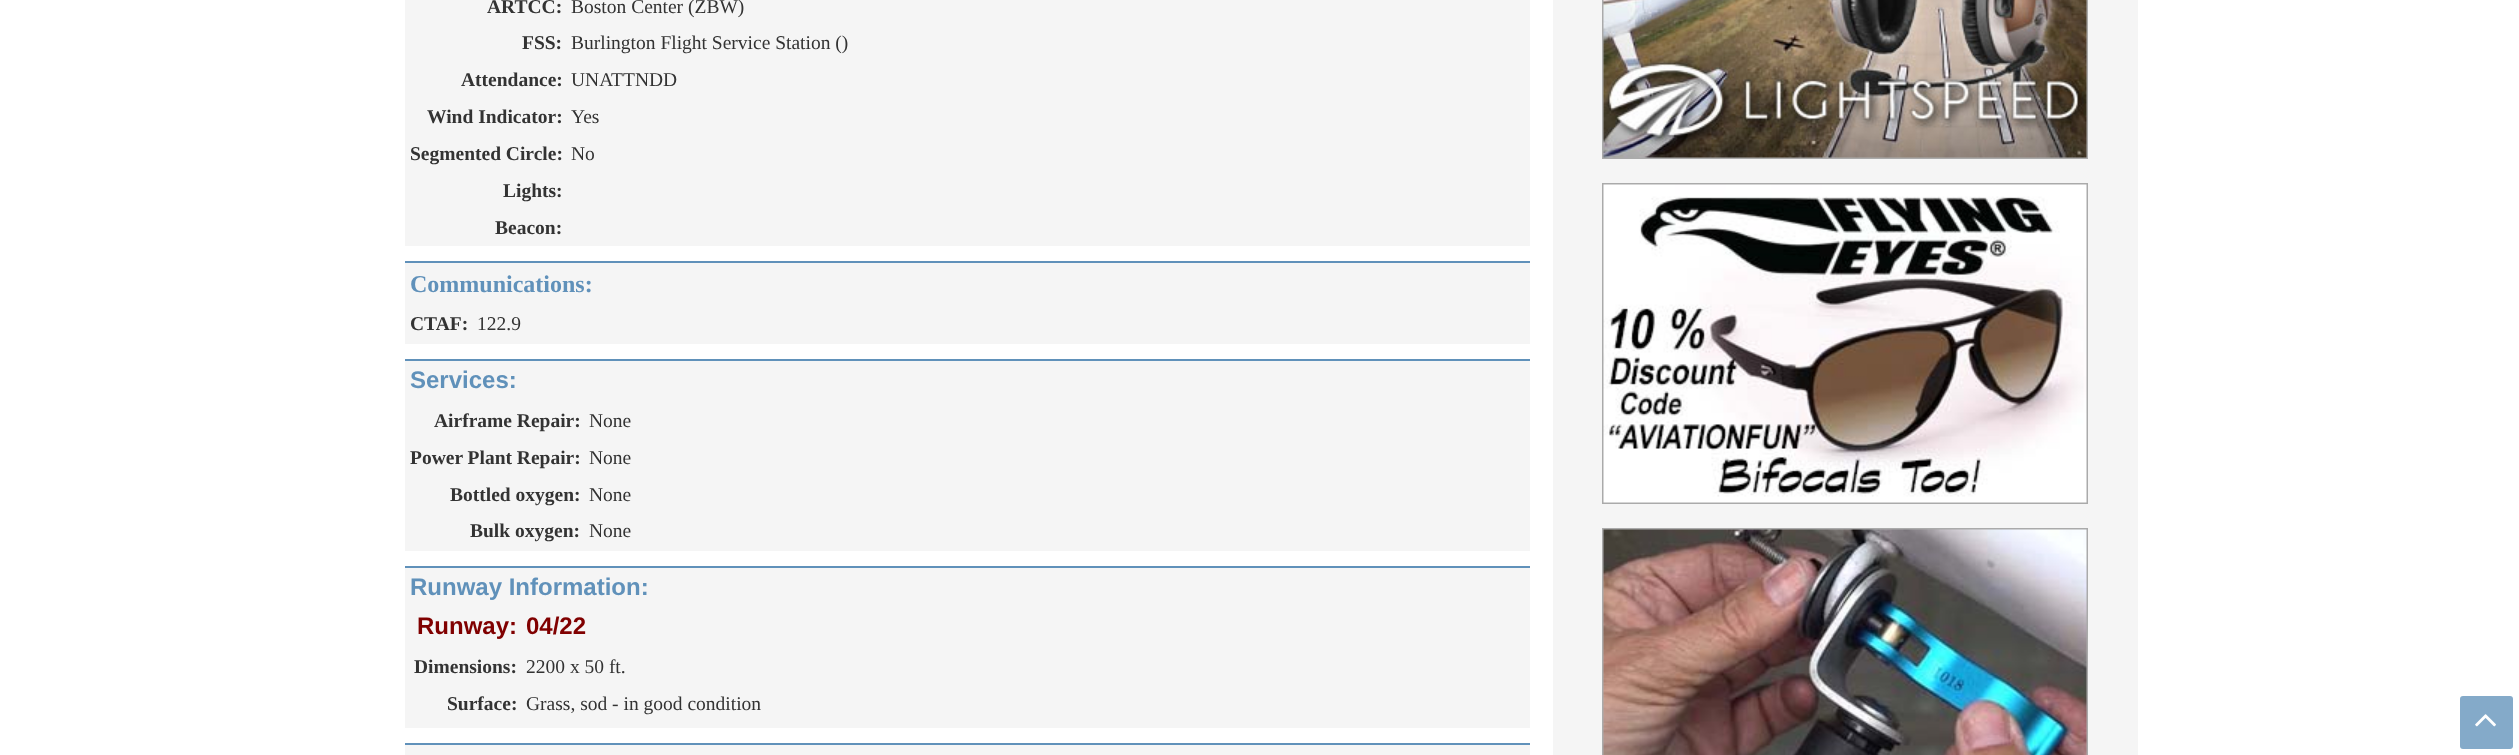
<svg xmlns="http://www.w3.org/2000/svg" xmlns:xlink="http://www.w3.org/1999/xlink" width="2519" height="755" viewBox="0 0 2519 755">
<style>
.cls-1{font:bold 19.5px Liberation Serif;fill:#333333}
.cls-2{font:19.5px Liberation Serif;fill:#333333}
.cls-3{font:bold 24px Liberation Serif;fill:#6091ba}
.cls-4{font:bold 24px Liberation Sans;fill:#6091ba}
.cls-5{font:bold 24px Liberation Sans;fill:#800000}
</style>
<rect width="100%" height="100%" fill="#ffffff"/>
<rect fill="#f5f5f5" x="405" y="0" width="1125" height="246"/>
<rect fill="#f5f5f5" x="405" y="263" width="1125" height="81"/>
<rect fill="#6091ba" x="405" y="261" width="1125" height="2"/>
<rect fill="#f5f5f5" x="405" y="361" width="1125" height="190"/>
<rect fill="#6091ba" x="405" y="359" width="1125" height="2"/>
<rect fill="#f5f5f5" x="405" y="568" width="1125" height="160"/>
<rect fill="#6091ba" x="405" y="566" width="1125" height="2"/>
<rect fill="#f5f5f5" x="405" y="745" width="1125" height="10"/>
<rect fill="#6091ba" x="405" y="743" width="1125" height="2"/>
<rect fill="#f5f5f5" x="1553" y="0" width="585" height="755"/>
<rect fill="none" stroke="#aaaaaa" stroke-width="2" x="1603" y="-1" width="484" height="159"/>
<image xlink:href="image0.png" x="1603" y="0" width="484" height="158"/>
<rect fill="none" stroke="#aaaaaa" stroke-width="2" x="1603" y="184" width="484" height="319"/>
<image xlink:href="image1.png" x="1603" y="184" width="484" height="319"/>
<rect fill="none" stroke="#aaaaaa" stroke-width="2" x="1603" y="529" width="484" height="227"/>
<image xlink:href="image2.png" x="1603" y="529" width="484" height="226"/>
<rect fill="#84aac9" x="2460" y="696" width="53" height="53" rx="3"/>
<image xlink:href="image3.png" x="2475" y="714" width="21" height="13"/>
<text class="cls-1" x="487" y="13">ARTCC:</text>
<text class="cls-2" x="571" y="13">Boston Center (ZBW)</text>
<text class="cls-1" x="522" y="49">FSS:</text>
<text class="cls-2" x="571" y="49">Burlington Flight Service Station ()</text>
<text class="cls-1" x="461" y="86">Attendance:</text>
<text class="cls-2" x="571" y="86">UNATTNDD</text>
<text class="cls-1" x="427" y="123">Wind Indicator:</text>
<text class="cls-2" x="571" y="123">Yes</text>
<text class="cls-1" x="410" y="160">Segmented Circle:</text>
<text class="cls-2" x="571" y="160">No</text>
<text class="cls-1" x="503" y="197">Lights:</text>
<text class="cls-1" x="495" y="234">Beacon:</text>
<text class="cls-3" x="410" y="292">Communications:</text>
<text class="cls-1" x="410" y="330">CTAF:</text>
<text class="cls-2" x="477" y="330">122.9</text>
<text class="cls-4" x="410" y="388">Services:</text>
<text class="cls-1" x="434" y="427">Airframe Repair:</text>
<text class="cls-2" x="589" y="427">None</text>
<text class="cls-1" x="410" y="464">Power Plant Repair:</text>
<text class="cls-2" x="589" y="464">None</text>
<text class="cls-1" x="450" y="501">Bottled oxygen:</text>
<text class="cls-2" x="589" y="501">None</text>
<text class="cls-1" x="470" y="537">Bulk oxygen:</text>
<text class="cls-2" x="589" y="537">None</text>
<text class="cls-4" x="410" y="595">Runway Information:</text>
<text class="cls-5" x="417" y="634">Runway:</text>
<text class="cls-5" x="526" y="634">04/22</text>
<text class="cls-1" x="414" y="673">Dimensions:</text>
<text class="cls-2" x="526" y="673">2200 x 50 ft.</text>
<text class="cls-1" x="447" y="710">Surface:</text>
<text class="cls-2" x="526" y="710">Grass, sod - in good condition</text>
</svg>
